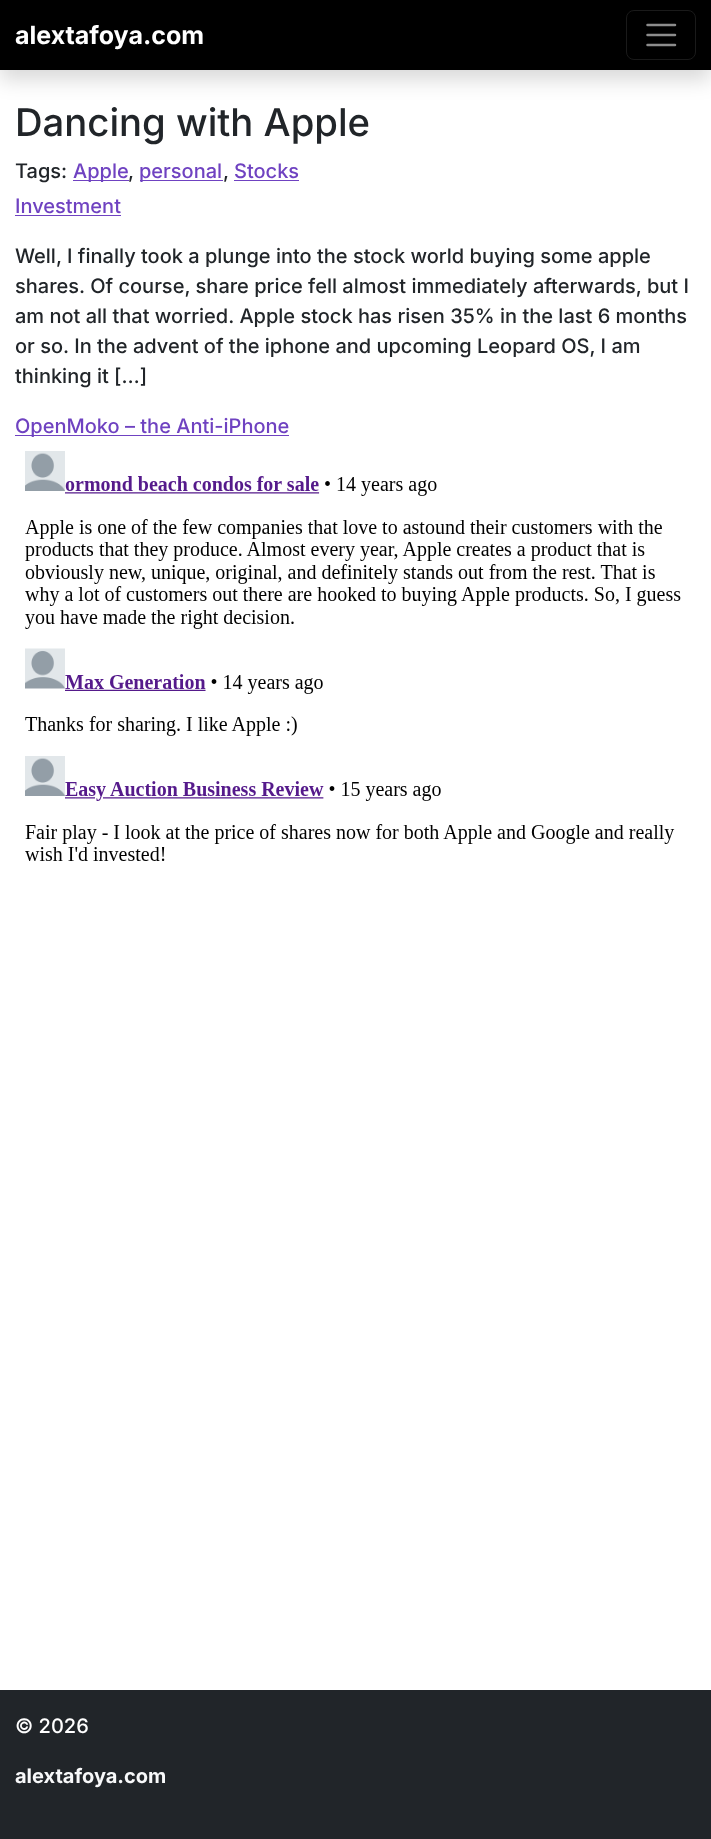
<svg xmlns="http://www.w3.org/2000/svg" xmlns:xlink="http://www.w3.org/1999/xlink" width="711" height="1839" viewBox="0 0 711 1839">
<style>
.cls-1{font:bold 25px Inter;fill:#ffffff}
.cls-2{font:500 38.25px Inter;fill:#212529}
.cls-3{font:500 20px Inter;fill:#212529}
.cls-4{font:500 20px Inter;fill:#6f42c1}
.cls-5{font:500 20px Inter;fill:#ffffff}
.cls-6{font:bold 20px Inter;fill:#f8f9fa}
</style>
<rect width="100%" height="100%" fill="#ffffff"/>
<rect fill="#000000" fill-opacity="0.15" filter="blur(10px)" x="0" y="10" width="711" height="70"/>
<rect fill="#000000" x="0" y="0" width="711" height="70"/>
<rect fill="none" stroke="#1a1a1a" x="626.5" y="10.5" width="69" height="49" rx="7.5"/>
<path fill="none" stroke="#8c8c8c" stroke-width="2.5" stroke-linecap="round" d="M647.5 25H675M647.5 35H675M647.5 45H675"/>
<rect fill="#6f42c1" x="73" y="180" width="56" height="1"/>
<rect fill="#6f42c1" x="140" y="180" width="83" height="1"/>
<rect fill="#6f42c1" x="234" y="180" width="65" height="1"/>
<rect fill="#6f42c1" x="15" y="215" width="106" height="1"/>
<rect fill="#6f42c1" x="15" y="435" width="274" height="1"/>
<image xlink:href="image0.png" x="25" y="451" width="656" height="410"/>
<rect fill="#212529" x="0" y="1690" width="711" height="149"/>
<text class="cls-1" x="15" y="44">alextafoya.com</text>
<text class="cls-2" x="15" y="136">Dancing with Apple</text>
<text class="cls-3" x="15" y="178">Tags:</text>
<text class="cls-4" x="73" y="178">Apple</text>
<text class="cls-3" x="128" y="178">,</text>
<text class="cls-4" x="139" y="178">personal</text>
<text class="cls-3" x="223" y="178">,</text>
<text class="cls-4" x="234" y="178">Stocks</text>
<text class="cls-4" x="15" y="213">Investment</text>
<text class="cls-3"><tspan x="15" y="263">Well, I finally took a plunge into the stock world buying some apple</tspan><tspan x="15" y="293">shares. Of course, share price fell almost immediately afterwards, but I</tspan><tspan x="15" y="323">am not all that worried. Apple stock has risen 35% in the last 6 months</tspan><tspan x="15" y="353">or so. In the advent of the iphone and upcoming Leopard OS, I am</tspan><tspan x="15" y="383">thinking it […]</tspan></text>
<text class="cls-4" x="15" y="433">OpenMoko – the Anti-iPhone</text>
<text class="cls-5" x="15" y="1733">© 2026</text>
<text class="cls-6" x="15" y="1783">alextafoya.com</text>
</svg>
